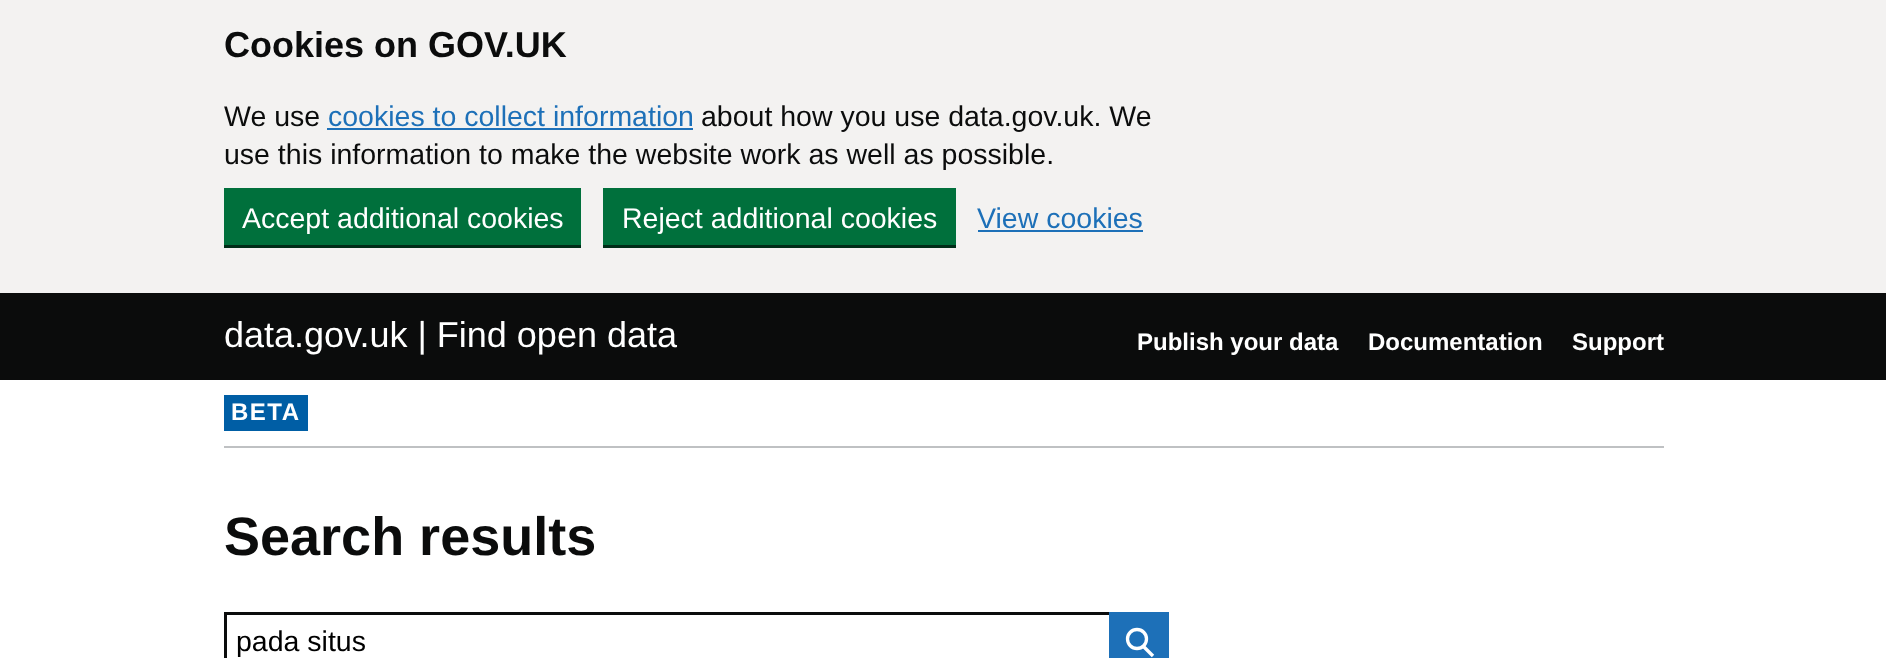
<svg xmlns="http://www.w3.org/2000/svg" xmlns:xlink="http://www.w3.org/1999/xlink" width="1886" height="658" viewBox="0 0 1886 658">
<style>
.cls-1{font:bold 36px Liberation Sans;fill:#0b0c0c}
.cls-2{font:28.5px Liberation Sans;fill:#0b0c0c}
.cls-3{font:28.5px Liberation Sans;fill:#1d70b8}
.cls-4{font:28.5px Liberation Sans;fill:#ffffff}
.cls-5{font:36px Liberation Sans;fill:#ffffff}
.cls-6{font:bold 24px Liberation Sans;fill:#ffffff}
.cls-7{font:bold 24px Liberation Sans;letter-spacing:1.5px;fill:#ffffff}
.cls-8{font:bold 54px Liberation Sans;fill:#0b0c0c}
.cls-9{font:28.5px Liberation Sans;fill:#000000}
</style>
<rect width="100%" height="100%" fill="#ffffff"/>
<rect fill="#f3f2f1" x="0" y="0" width="1886" height="293"/>
<rect fill="#1d70b8" x="327" y="128" width="366" height="2"/>
<path fill="#002d18" d="M224 244V248H581V191H580V244Z"/>
<rect fill="#00703c" x="224" y="188" width="357" height="57"/>
<path fill="#002d18" d="M603 244V248H956V191V244Z"/>
<rect fill="#00703c" x="603" y="188" width="353" height="57"/>
<rect fill="#1d70b8" x="978" y="230" width="165" height="2"/>
<rect fill="#0b0c0c" x="0" y="293" width="1886" height="87"/>
<rect fill="#bfc1c3" x="224" y="446" width="1440" height="2"/>
<rect fill="#005ea5" x="224" y="395" width="84" height="36"/>
<rect fill="#0b0c0c" x="224" y="612" width="885" height="3"/>
<rect fill="#0b0c0c" x="224" y="612" width="3" height="46"/>
<rect fill="#1d70b8" x="1109" y="612" width="60" height="46"/>
<circle fill="none" stroke="#ffffff" stroke-width="3.3" cx="1137" cy="639" r="9.5"/>
<path fill="none" stroke="#ffffff" stroke-width="3.3" d="M1143.5 646.5L1153 656"/>
<text class="cls-1" x="224" y="57">Cookies on GOV.UK</text>
<text class="cls-2" x="224" y="126">We use</text>
<text class="cls-3" x="328" y="126">cookies to collect information</text>
<text class="cls-2" x="701" y="126">about how you use data.gov.uk. We</text>
<text class="cls-2" x="224" y="164">use this information to make the website work as well as possible.</text>
<text class="cls-4" x="242" y="228">Accept additional cookies</text>
<text class="cls-4" x="622" y="228">Reject additional cookies</text>
<text class="cls-3" x="977" y="228">View cookies</text>
<text class="cls-5" x="224" y="347">data.gov.uk | Find open data</text>
<text class="cls-6" x="1137" y="350">Publish your data</text>
<text class="cls-6" x="1368" y="350">Documentation</text>
<text class="cls-6" x="1572" y="350">Support</text>
<text class="cls-7" x="231" y="420">BETA</text>
<text class="cls-8" x="224" y="555">Search results</text>
<text class="cls-9" x="236" y="651">pada situs</text>
</svg>
